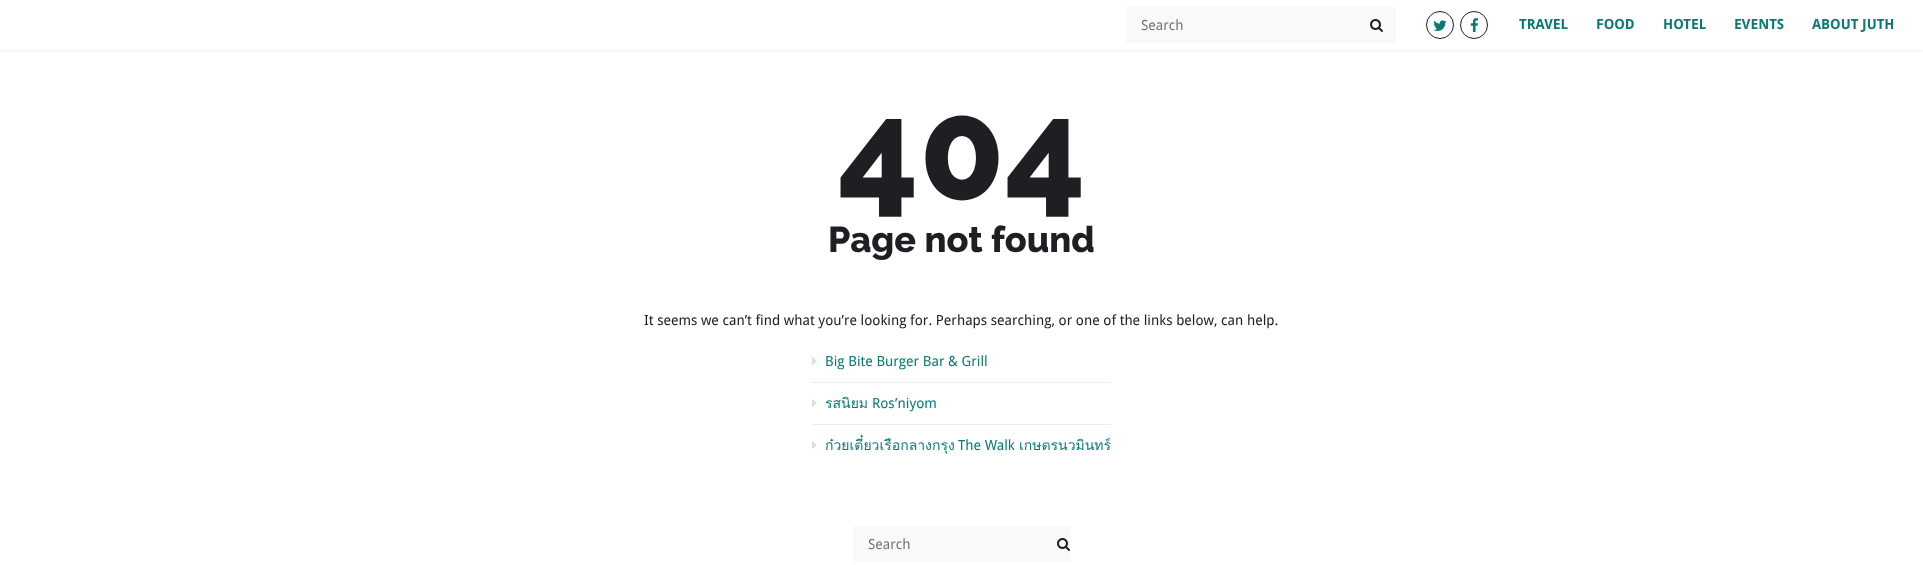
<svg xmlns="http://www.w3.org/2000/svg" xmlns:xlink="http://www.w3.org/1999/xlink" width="1923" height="565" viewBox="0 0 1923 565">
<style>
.cls-1{font:14px Droid Sans;fill:#757575}
.cls-2{font:bold 14px Droid Sans;fill:#0b7a75}
.cls-3{font:800 140px Raleway;fill:#1d1f22}
.cls-4{font:800 36px Raleway;fill:#1d1f22}
.cls-5{font:14px Droid Sans;fill:#1d1f22}
.cls-6{font:14px Droid Sans;fill:#0b7a75}
.cls-7{font:14px Loma;fill:#0b7a75}
</style>
<defs>
<clipPath id="clip1"><rect x="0" y="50" width="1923" height="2"/></clipPath>
</defs>
<rect width="100%" height="100%" fill="#ffffff"/>
<g clip-path="url(#clip1)">
<rect fill="#000000" fill-opacity="0.1" filter="blur(2px)" x="0" y="0" width="1923" height="50"/>
</g>
<rect fill="#f9f9f9" x="1126" y="7" width="270" height="36"/>
<image xlink:href="image0.png" x="1370" y="19" width="13" height="13"/>
<circle fill="none" stroke="#1d1f22" cx="1440" cy="25" r="13.5"/>
<image xlink:href="image1.png" x="1433" y="20" width="14" height="11"/>
<circle fill="none" stroke="#1d1f22" cx="1474" cy="25" r="13.5"/>
<image xlink:href="image2.png" x="1470" y="18" width="9" height="15"/>
<rect fill="#ededed" x="812" y="382" width="299" height="1"/>
<image xlink:href="image3.png" x="812" y="357" width="5" height="8"/>
<rect fill="#ededed" x="812" y="424" width="299" height="1"/>
<image xlink:href="image3.png" x="812" y="399" width="5" height="8"/>
<image xlink:href="image3.png" x="812" y="441" width="5" height="8"/>
<rect fill="#f9f9f9" x="853" y="526" width="217" height="36"/>
<image xlink:href="image0.png" x="1057" y="538" width="13" height="13"/>
<text class="cls-1" x="1141" y="30">Search</text>
<text class="cls-2" x="1519" y="29">TRAVEL</text>
<text class="cls-2" x="1596" y="29">FOOD</text>
<text class="cls-2" x="1663" y="29">HOTEL</text>
<text class="cls-2" x="1734" y="29">EVENTS</text>
<text class="cls-2" x="1812" y="29">ABOUT JUTH</text>
<text class="cls-3" x="838" y="199">404</text>
<text class="cls-4" x="828" y="252">Page not found</text>
<text class="cls-5" x="644" y="325">It seems we can’t find what you’re looking for. Perhaps searching, or one of the links below, can help.</text>
<text class="cls-6" x="825" y="366">Big Bite Burger Bar &amp; Grill</text>
<text class="cls-7" x="825" y="408">รสนิยม</text>
<text class="cls-6" x="872" y="408">Ros’niyom</text>
<text class="cls-7" x="825" y="450">ก๋วยเตี๋ยวเรือกลางกรุง</text>
<text class="cls-6" x="958" y="450">The Walk</text>
<text class="cls-7" x="1019" y="450">เกษตรนวมินทร์</text>
<text class="cls-1" x="868" y="549">Search</text>
</svg>
